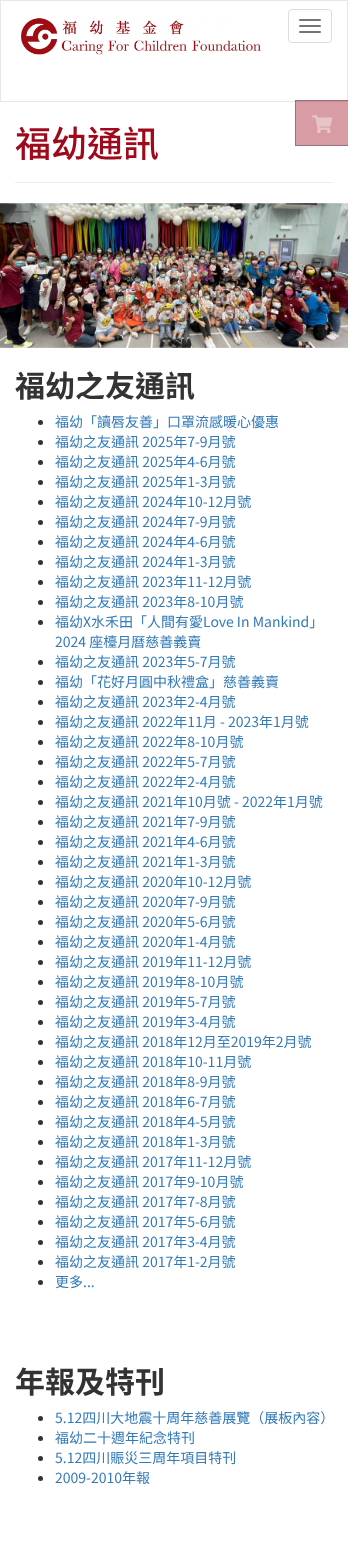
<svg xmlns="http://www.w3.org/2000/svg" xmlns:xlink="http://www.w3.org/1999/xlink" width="348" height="1562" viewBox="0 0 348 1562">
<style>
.cls-1{font:500 36px Noto Sans TC;fill:#9e091b}
.cls-2{font:bold 30px Noto Sans TC;fill:#333333}
.cls-3{font:14px Noto Sans TC;fill:#337ab7}
</style>
<rect width="100%" height="100%" fill="#ffffff"/>
<rect fill="none" stroke="#e7e7e7" x="0.5" y="0.5" width="347" height="101"/>
<rect fill="#9e091b" fill-opacity="0.4" x="295" y="100" width="53" height="46"/>
<rect fill="none" stroke="#2f353b" stroke-opacity="0.4" x="295.5" y="100.5" width="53" height="45"/>
<image xlink:href="image0.png" x="312" y="115" width="21" height="19"/>
<image xlink:href="image1.png" x="20" y="18" width="241" height="37"/>
<rect fill="none" stroke="#dddddd" x="288.5" y="9.5" width="43" height="33" rx="3.5"/>
<rect fill="#757575" x="299" y="19" width="22" height="2" rx="1"/>
<rect fill="#757575" x="299" y="25" width="22" height="2" rx="1"/>
<rect fill="#757575" x="299" y="31" width="22" height="2" rx="1"/>
<rect fill="#eeeeee" x="15" y="182" width="318" height="1"/>
<image xlink:href="image2.png" x="0" y="203" width="348" height="145"/>
<circle fill="#333333" cx="40.5" cy="422.5" r="2.5"/>
<circle fill="#333333" cx="40.5" cy="442.5" r="2.5"/>
<circle fill="#333333" cx="40.5" cy="462.5" r="2.5"/>
<circle fill="#333333" cx="40.5" cy="482.5" r="2.5"/>
<circle fill="#333333" cx="40.5" cy="502.5" r="2.5"/>
<circle fill="#333333" cx="40.5" cy="522.5" r="2.5"/>
<circle fill="#333333" cx="40.5" cy="542.5" r="2.5"/>
<circle fill="#333333" cx="40.5" cy="562.5" r="2.5"/>
<circle fill="#333333" cx="40.5" cy="582.5" r="2.5"/>
<circle fill="#333333" cx="40.5" cy="602.5" r="2.5"/>
<circle fill="#333333" cx="40.5" cy="622.5" r="2.5"/>
<circle fill="#333333" cx="40.5" cy="662.5" r="2.5"/>
<circle fill="#333333" cx="40.5" cy="682.5" r="2.5"/>
<circle fill="#333333" cx="40.5" cy="702.5" r="2.5"/>
<circle fill="#333333" cx="40.5" cy="722.5" r="2.5"/>
<circle fill="#333333" cx="40.5" cy="742.5" r="2.5"/>
<circle fill="#333333" cx="40.5" cy="762.5" r="2.5"/>
<circle fill="#333333" cx="40.5" cy="782.5" r="2.5"/>
<circle fill="#333333" cx="40.5" cy="802.5" r="2.5"/>
<circle fill="#333333" cx="40.5" cy="822.5" r="2.5"/>
<circle fill="#333333" cx="40.5" cy="842.5" r="2.5"/>
<circle fill="#333333" cx="40.5" cy="862.5" r="2.5"/>
<circle fill="#333333" cx="40.5" cy="882.5" r="2.5"/>
<circle fill="#333333" cx="40.5" cy="902.5" r="2.5"/>
<circle fill="#333333" cx="40.5" cy="922.5" r="2.5"/>
<circle fill="#333333" cx="40.5" cy="942.5" r="2.5"/>
<circle fill="#333333" cx="40.5" cy="962.5" r="2.5"/>
<circle fill="#333333" cx="40.5" cy="982.5" r="2.5"/>
<circle fill="#333333" cx="40.5" cy="1002.5" r="2.5"/>
<circle fill="#333333" cx="40.5" cy="1022.5" r="2.5"/>
<circle fill="#333333" cx="40.5" cy="1042.5" r="2.5"/>
<circle fill="#333333" cx="40.5" cy="1062.5" r="2.5"/>
<circle fill="#333333" cx="40.5" cy="1082.5" r="2.5"/>
<circle fill="#333333" cx="40.5" cy="1102.5" r="2.5"/>
<circle fill="#333333" cx="40.5" cy="1122.5" r="2.5"/>
<circle fill="#333333" cx="40.5" cy="1142.5" r="2.5"/>
<circle fill="#333333" cx="40.5" cy="1162.5" r="2.5"/>
<circle fill="#333333" cx="40.5" cy="1182.5" r="2.5"/>
<circle fill="#333333" cx="40.5" cy="1202.5" r="2.5"/>
<circle fill="#333333" cx="40.5" cy="1222.5" r="2.5"/>
<circle fill="#333333" cx="40.5" cy="1242.5" r="2.5"/>
<circle fill="#333333" cx="40.5" cy="1262.5" r="2.5"/>
<circle fill="#333333" cx="40.5" cy="1282.5" r="2.5"/>
<circle fill="#333333" cx="40.5" cy="1418.5" r="2.5"/>
<circle fill="#333333" cx="40.5" cy="1438.5" r="2.5"/>
<circle fill="#333333" cx="40.5" cy="1458.5" r="2.5"/>
<circle fill="#333333" cx="40.5" cy="1478.5" r="2.5"/>
<text class="cls-1" x="15" y="157">福幼通訊</text>
<text class="cls-2" x="15" y="397">福幼之友通訊</text>
<text class="cls-3"><tspan x="55" y="427">福幼「讀唇友善」口罩流感暖心優惠</tspan><tspan x="55" y="447">福幼之友通訊 2025年7-9月號</tspan><tspan x="55" y="467">福幼之友通訊 2025年4-6月號</tspan><tspan x="55" y="487">福幼之友通訊 2025年1-3月號</tspan><tspan x="55" y="507">福幼之友通訊 2024年10-12月號</tspan><tspan x="55" y="527">福幼之友通訊 2024年7-9月號</tspan><tspan x="55" y="547">福幼之友通訊 2024年4-6月號</tspan><tspan x="55" y="567">福幼之友通訊 2024年1-3月號</tspan><tspan x="55" y="587">福幼之友通訊 2023年11-12月號</tspan><tspan x="55" y="607">福幼之友通訊 2023年8-10月號</tspan><tspan x="55" y="627">福幼X水禾田「人間有愛Love In Mankind」</tspan><tspan x="55" y="647">2024 座檯月曆慈善義賣</tspan><tspan x="55" y="667">福幼之友通訊 2023年5-7月號</tspan><tspan x="55" y="687">福幼「花好月圓中秋禮盒」慈善義賣</tspan><tspan x="55" y="707">福幼之友通訊 2023年2-4月號</tspan><tspan x="55" y="727">福幼之友通訊 2022年11月 - 2023年1月號</tspan><tspan x="55" y="747">福幼之友通訊 2022年8-10月號</tspan><tspan x="55" y="767">福幼之友通訊 2022年5-7月號</tspan><tspan x="55" y="787">福幼之友通訊 2022年2-4月號</tspan><tspan x="55" y="807">福幼之友通訊 2021年10月號 - 2022年1月號</tspan><tspan x="55" y="827">福幼之友通訊 2021年7-9月號</tspan><tspan x="55" y="847">福幼之友通訊 2021年4-6月號</tspan><tspan x="55" y="867">福幼之友通訊 2021年1-3月號</tspan><tspan x="55" y="887">福幼之友通訊 2020年10-12月號</tspan><tspan x="55" y="907">福幼之友通訊 2020年7-9月號</tspan><tspan x="55" y="927">福幼之友通訊 2020年5-6月號</tspan><tspan x="55" y="947">福幼之友通訊 2020年1-4月號</tspan><tspan x="55" y="967">福幼之友通訊 2019年11-12月號</tspan><tspan x="55" y="987">福幼之友通訊 2019年8-10月號</tspan><tspan x="55" y="1007">福幼之友通訊 2019年5-7月號</tspan><tspan x="55" y="1027">福幼之友通訊 2019年3-4月號</tspan><tspan x="55" y="1047">福幼之友通訊 2018年12月至2019年2月號</tspan><tspan x="55" y="1067">福幼之友通訊 2018年10-11月號</tspan><tspan x="55" y="1087">福幼之友通訊 2018年8-9月號</tspan><tspan x="55" y="1107">福幼之友通訊 2018年6-7月號</tspan><tspan x="55" y="1127">福幼之友通訊 2018年4-5月號</tspan><tspan x="55" y="1147">福幼之友通訊 2018年1-3月號</tspan><tspan x="55" y="1167">福幼之友通訊 2017年11-12月號</tspan><tspan x="55" y="1187">福幼之友通訊 2017年9-10月號</tspan><tspan x="55" y="1207">福幼之友通訊 2017年7-8月號</tspan><tspan x="55" y="1227">福幼之友通訊 2017年5-6月號</tspan><tspan x="55" y="1247">福幼之友通訊 2017年3-4月號</tspan><tspan x="55" y="1267">福幼之友通訊 2017年1-2月號</tspan><tspan x="55" y="1287">更多...</tspan></text>
<text class="cls-2" x="15" y="1393">年報及特刊</text>
<text class="cls-3"><tspan x="55" y="1423">5.12四川大地震十周年慈善展覽（展板內容）</tspan><tspan x="55" y="1443">福幼二十週年紀念特刊</tspan><tspan x="55" y="1463">5.12四川賑災三周年項目特刊</tspan><tspan x="55" y="1483">2009-2010年報</tspan></text>
</svg>
